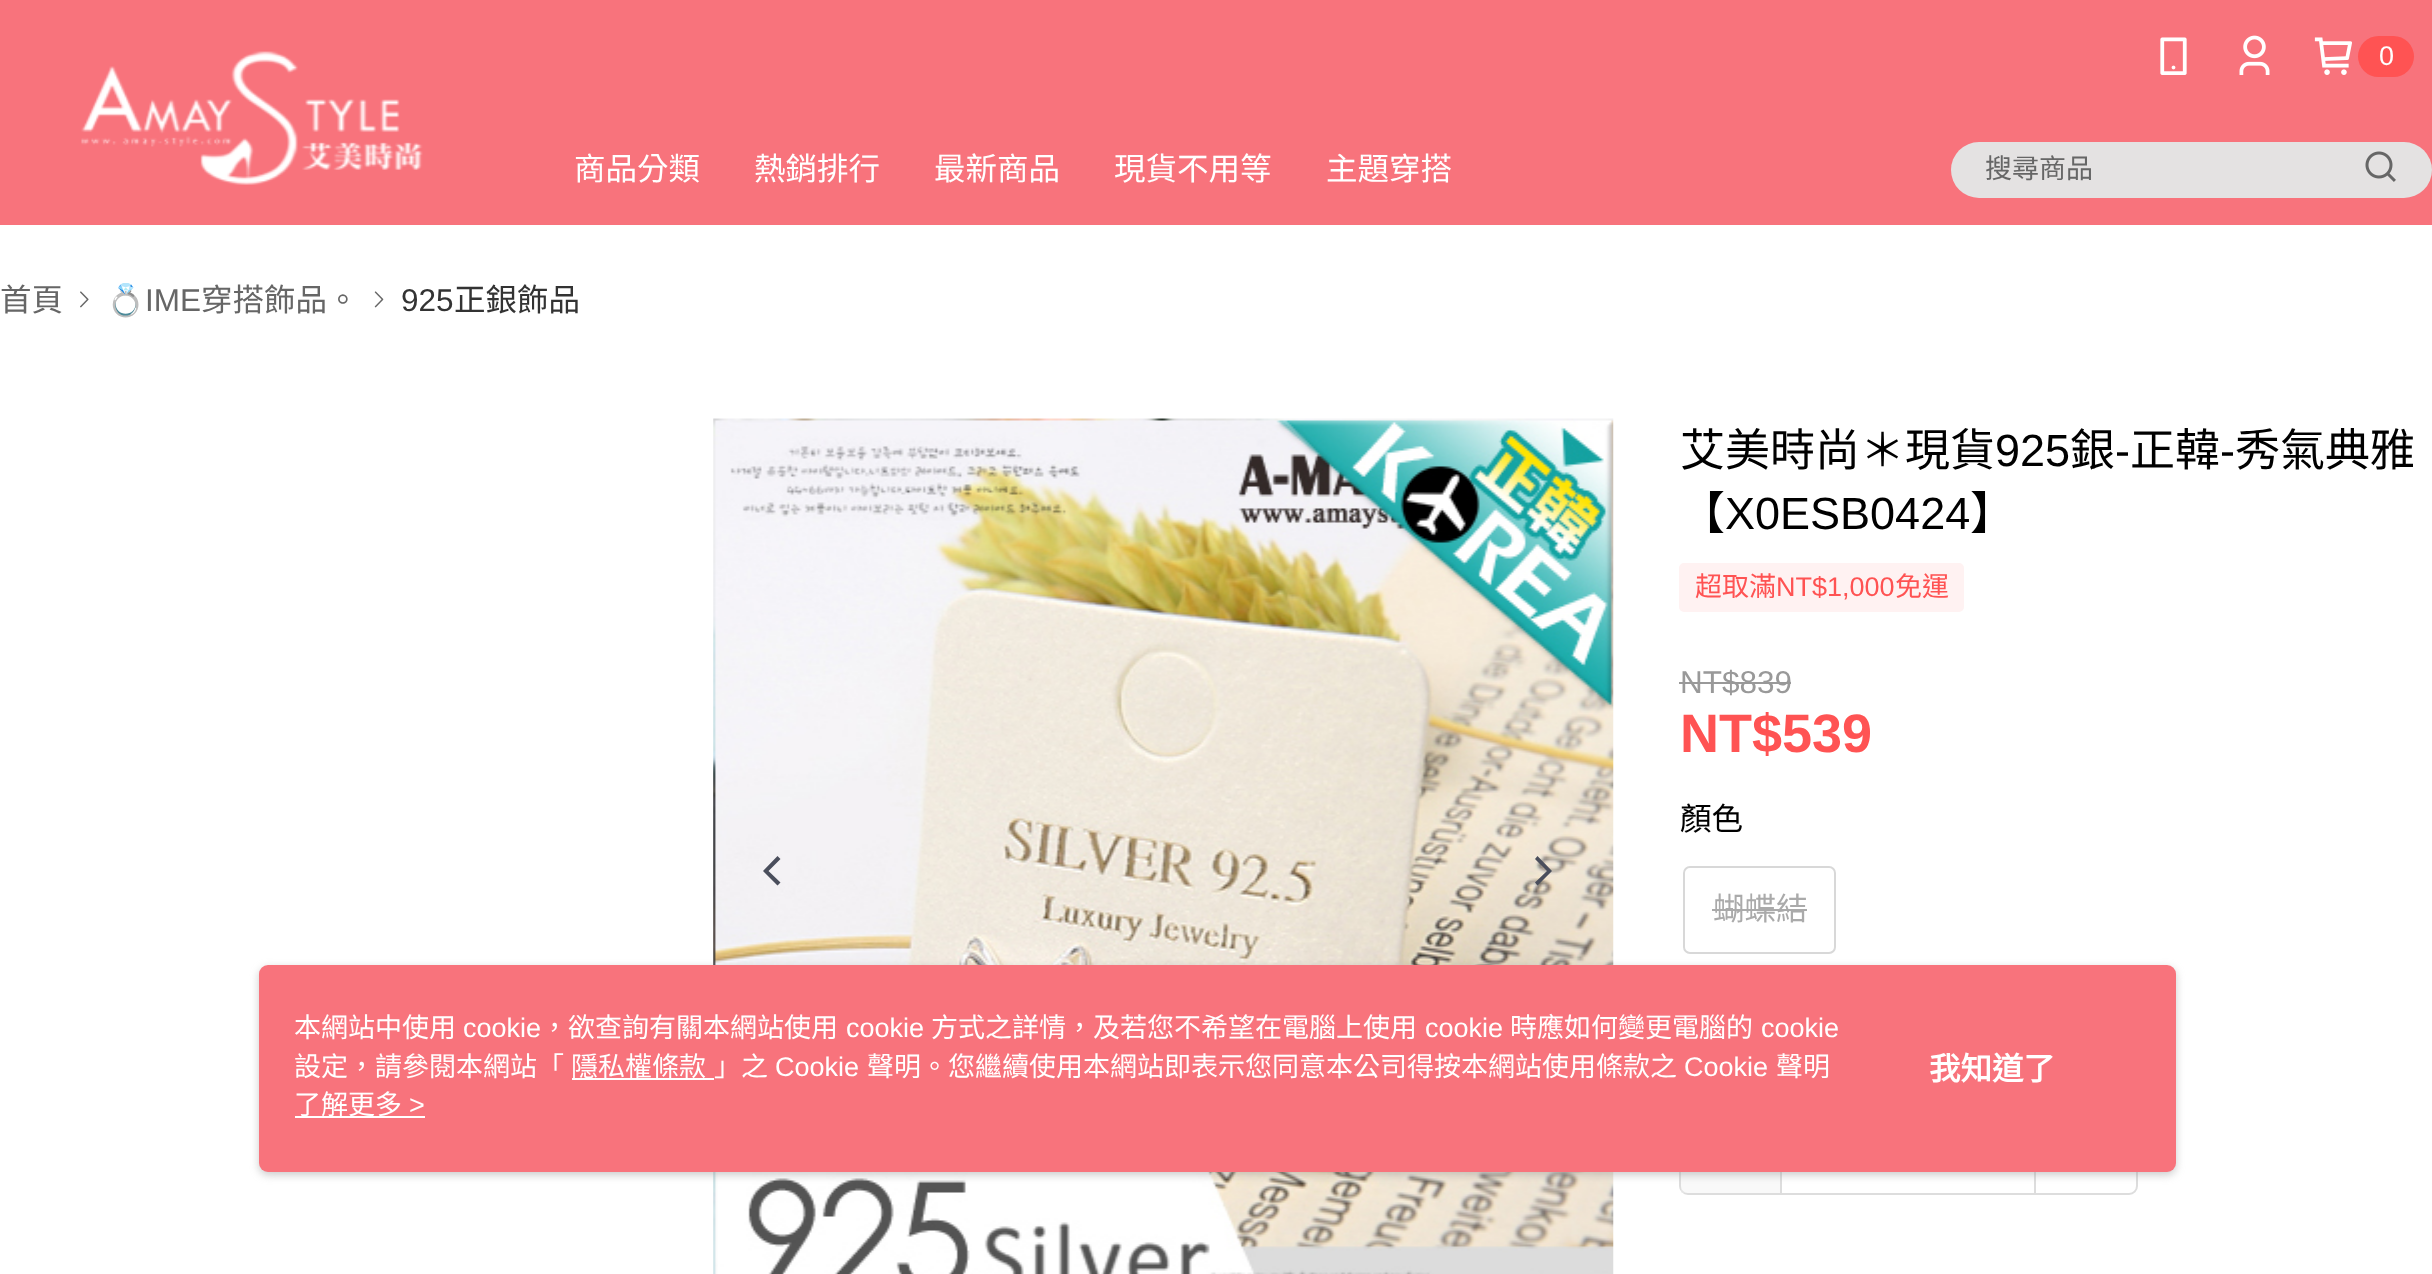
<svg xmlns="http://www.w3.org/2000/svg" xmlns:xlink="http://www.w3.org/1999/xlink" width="2432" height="1274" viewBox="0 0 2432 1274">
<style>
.cls-1{font:27px Liberation Sans;fill:#ffffff}
.cls-2{font:31.5px Noto Sans CJK TC;fill:#ffffff}
.cls-3{font:27px Noto Sans CJK TC;fill:#666666}
.cls-4{font:31.5px Noto Sans CJK TC;fill:#666666}
.cls-5{font:31.5px Noto Color Emoji;fill:#666666}
.cls-6{font:31.5px Liberation Sans;fill:#666666}
.cls-7{font:31.5px Liberation Sans;fill:#333333}
.cls-8{font:31.5px Noto Sans CJK TC;fill:#333333}
.cls-9{font:45px Noto Sans CJK TC;fill:#000000}
.cls-10{font:45px Liberation Sans;fill:#000000}
.cls-11{font:27px Noto Sans CJK TC;fill:#ff5353}
.cls-12{font:27px Liberation Sans;fill:#ff5353}
.cls-13{font:31.5px Liberation Sans;fill:#999999}
.cls-14{font:bold 54px Liberation Sans;fill:#ff5353}
.cls-15{font:31.5px Noto Sans CJK TC;fill:#000000}
.cls-16{font:31.5px Noto Sans CJK TC;fill:#aaaaaa}
.cls-17{font:27px Noto Sans CJK TC;fill:#ffffff}
.cls-18{font:bold 31.5px Noto Sans CJK TC;fill:#ffffff}
</style>
<rect width="100%" height="100%" fill="#ffffff"/>
<rect fill="#f8737c" x="0" y="0" width="2432" height="225"/>
<image xlink:href="image0.png" x="81" y="51" width="342" height="134"/>
<image xlink:href="image1.png" x="2160" y="37" width="27" height="38"/>
<image xlink:href="image2.png" x="2239" y="35" width="31" height="40"/>
<image xlink:href="image3.png" x="2314" y="37" width="38" height="38"/>
<rect fill="#ff5353" x="2358" y="36" width="56" height="41" rx="20.5"/>
<rect fill="#e4e2e2" x="1951" y="142" width="481" height="56" rx="28"/>
<image xlink:href="image4.png" x="2365" y="151" width="31" height="31"/>
<image xlink:href="image5.png" x="80" y="291" width="9" height="17"/>
<image xlink:href="image6.png" x="374" y="291" width="10" height="17"/>
<image xlink:href="image7.png" x="713" y="418" width="901" height="856"/>
<path fill="#4a4e5c" d="M780.5 859L777.5 856L763 871L777.5 885.5L780.5 882.5L768.5 871Z"/>
<path fill="#4a4e5c" d="M1535 882.5L1537.5 885.5L1552 871L1537.5 856L1535 859L1547 871Z"/>
<rect fill="#fff2f2" stroke="#fff2f2" stroke-width="2" x="1680" y="564" width="283" height="47" rx="4"/>
<rect fill="#999999" x="1679" y="682" width="112" height="2"/>
<rect fill="none" stroke="#d8d8d8" stroke-width="2" x="1684" y="867" width="151" height="86" rx="6"/>
<rect fill="#aaaaaa" x="1712" y="909" width="95" height="2"/>
<rect fill="none" stroke="#dddddd" stroke-width="2" x="1680" y="1092" width="457" height="102" rx="8"/>
<rect fill="#f1f1f1" fill-opacity="0.4" x="1681" y="1172" width="99" height="21"/>
<rect fill="#dddddd" x="2034" y="1172" width="2" height="21"/>
<rect fill="#dddddd" x="1780" y="1172" width="2" height="21"/>
<rect fill="#979797" fill-opacity="0.5" filter="blur(4.5px)" x="259" y="968" width="1917" height="207" rx="9"/>
<rect fill="#f8737c" x="259" y="965" width="1917" height="207" rx="9"/>
<rect fill="#ffffff" x="572" y="1078" width="142" height="2"/>
<rect fill="#ffffff" x="295" y="1116" width="130" height="2"/>
<text class="cls-1" x="2379" y="65">0</text>
<text class="cls-2" x="574" y="180">商品分類</text>
<text class="cls-2" x="754" y="180">熱銷排行</text>
<text class="cls-2" x="934" y="180">最新商品</text>
<text class="cls-2" x="1114" y="180">現貨不用等</text>
<text class="cls-2" x="1326" y="180">主題穿搭</text>
<text class="cls-3" x="1985" y="178">搜尋商品</text>
<text class="cls-4" x="0" y="311">首頁</text>
<text class="cls-5" x="106" y="311">💍</text>
<text class="cls-6" x="145" y="311">IME</text>
<text class="cls-4" x="201" y="311">穿搭飾品。</text>
<text class="cls-7" x="401" y="311">925</text>
<text class="cls-8" x="454" y="311">正銀飾品</text>
<text class="cls-9" x="1680" y="466">艾美時尚＊現貨</text>
<text class="cls-10" x="1995" y="466">925</text>
<text class="cls-9" x="2070" y="466">銀</text>
<text class="cls-10" x="2115" y="466">-</text>
<text class="cls-9" x="2130" y="466">正韓</text>
<text class="cls-10" x="2220" y="466">-</text>
<text class="cls-9" x="2235" y="466">秀氣典雅</text>
<text class="cls-9" x="1680" y="529">【</text>
<text class="cls-10" x="1725" y="529">X0ESB0424</text>
<text class="cls-9" x="1970" y="529">】</text>
<text class="cls-11" x="1695" y="596">超取滿</text>
<text class="cls-12" x="1776" y="596">NT$1,000</text>
<text class="cls-11" x="1895" y="596">免運</text>
<text class="cls-13" x="1680" y="693">NT$839</text>
<text class="cls-14" x="1680" y="752">NT$539</text>
<text class="cls-15" x="1680" y="830">顏色</text>
<text class="cls-16" x="1713" y="920">蝴蝶結</text>
<text class="cls-17" x="294" y="1037">本網站中使用</text>
<text class="cls-1" x="463" y="1037">cookie</text>
<text class="cls-17" x="541" y="1037">，欲查詢有關本網站使用</text>
<text class="cls-1" x="846" y="1037">cookie</text>
<text class="cls-17" x="931" y="1037">方式之詳情，及若您不希望在電腦上使用</text>
<text class="cls-1" x="1425" y="1037">cookie</text>
<text class="cls-17" x="1510" y="1037">時應如何變更電腦的</text>
<text class="cls-1" x="1761" y="1037">cookie</text>
<text class="cls-17" x="294" y="1076">設定，請參閱本網站「</text>
<text class="cls-17" x="571" y="1076">隱私權條款</text>
<text class="cls-17" x="714" y="1076">」之</text>
<text class="cls-1" x="775" y="1076">Cookie</text>
<text class="cls-17" x="867" y="1076">聲明。您繼續使用本網站即表示您同意本公司得按本網站使用條款之</text>
<text class="cls-1" x="1684" y="1076">Cookie</text>
<text class="cls-17" x="1776" y="1076">聲明</text>
<text class="cls-17" x="294" y="1114">了解更多</text>
<text class="cls-1" x="409" y="1114">&gt;</text>
<text class="cls-18" x="1929" y="1080">我知道了</text>
</svg>
